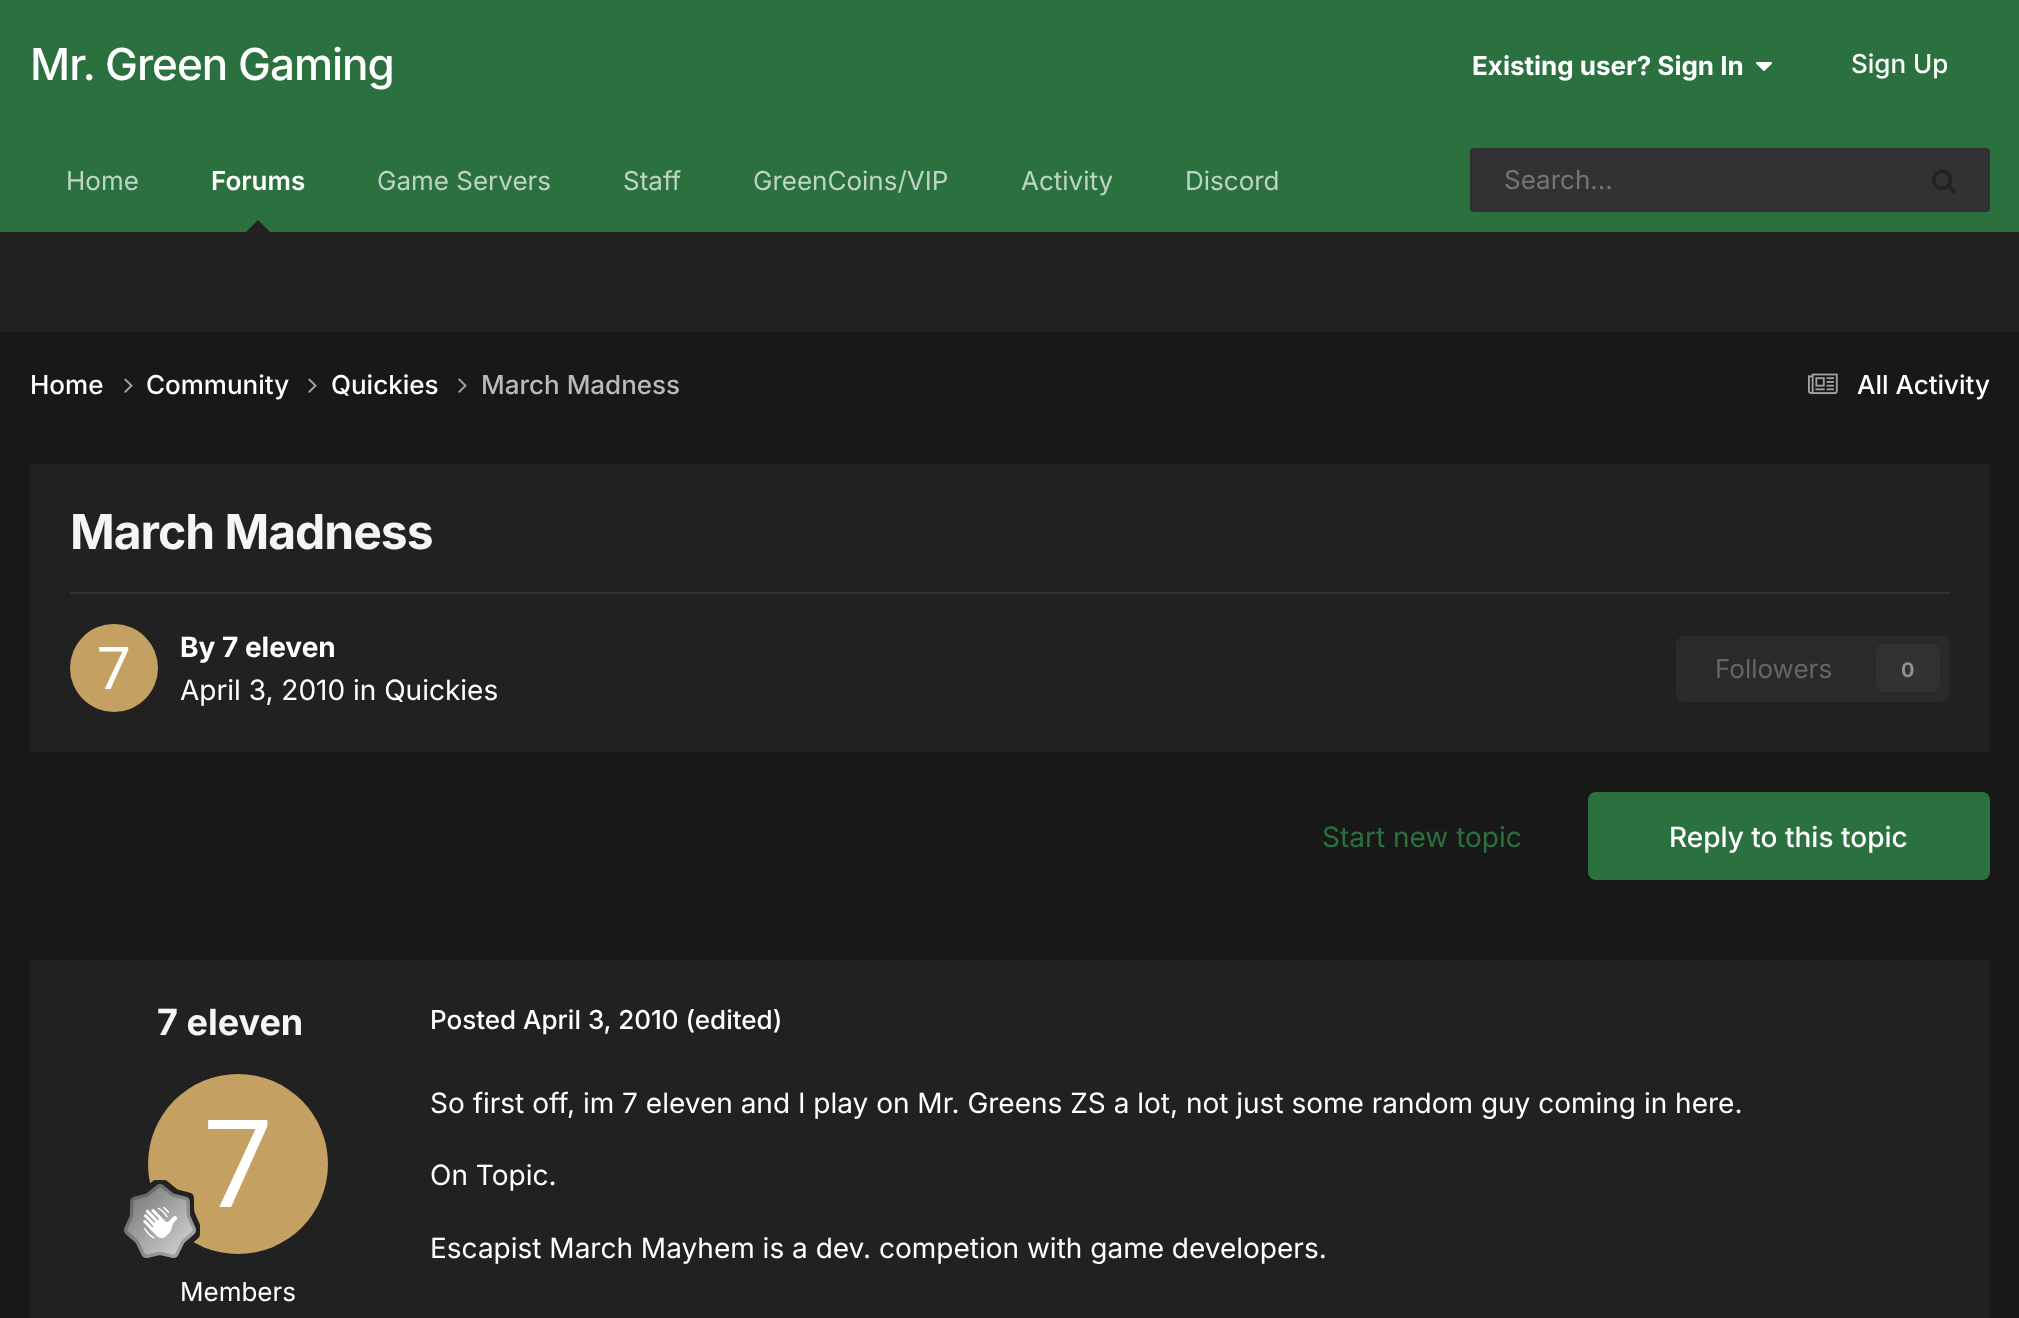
<svg xmlns="http://www.w3.org/2000/svg" xmlns:xlink="http://www.w3.org/1999/xlink" width="2019" height="1318" viewBox="0 0 2019 1318">
<style>
.cls-1{font:500 44px Inter;letter-spacing:-1px;fill:#ffffff}
.cls-2{font:bold 26px Inter;fill:#ffffff}
.cls-3{font:500 26px Inter;fill:#ffffff}
.cls-4{font:26px Inter;fill:#bfd4c5}
.cls-5{font:600 26px Inter;fill:#ffffff}
.cls-6{font:26px Inter;fill:#757575}
.cls-7{font:500 26px Inter;fill:#bababa}
.cls-8{font:bold 48px Inter;letter-spacing:-1px;fill:#f3f6f4}
.cls-9{font:bold 28px Inter;fill:#ffffff}
.cls-10{font:28px Inter;fill:#ffffff}
.cls-11{font:26px Inter;fill:#666666}
.cls-12{font:bold 20px Inter;fill:#909090}
.cls-13{font:28px Inter;fill:#2b713f}
.cls-14{font:500 28px Inter;fill:#ffffff}
.cls-15{font:bold 36px Inter;fill:#f3f6f4}
.cls-16{font:26px Inter;fill:#ffffff}
</style>
<rect width="100%" height="100%" fill="#181818"/>
<rect fill="#2b713f" x="0" y="0" width="2019" height="232"/>
<image xlink:href="image0.png" x="1756" y="62" width="16" height="9"/>
<path fill="#212121" d="M270 232H246L258 220Z"/>
<rect fill="#323232" stroke="#303030" stroke-width="2" x="1471" y="149" width="518" height="62" rx="3"/>
<image xlink:href="image1.png" x="1932" y="169" width="24" height="25"/>
<rect fill="#212121" x="0" y="232" width="2019" height="100"/>
<image xlink:href="image2.png" x="124" y="378" width="9" height="15"/>
<image xlink:href="image2.png" x="308" y="378" width="9" height="15"/>
<image xlink:href="image2.png" x="458" y="378" width="9" height="15"/>
<image xlink:href="image3.png" x="1808" y="373" width="30" height="21"/>
<rect fill="#212121" x="30" y="464" width="1960" height="288"/>
<rect fill="#333333" x="70" y="592" width="1880" height="2"/>
<image xlink:href="image4.png" x="70" y="624" width="88" height="88"/>
<rect fill="#2a2a2a" x="1676" y="636" width="274" height="66" rx="8"/>
<rect fill="#323232" x="1876" y="644" width="64" height="48" rx="8"/>
<rect fill="#2b713f" x="1588" y="792" width="402" height="88" rx="8"/>
<rect fill="#212121" x="30" y="960" width="1960" height="358"/>
<image xlink:href="image5.png" x="148" y="1074" width="180" height="180"/>
<image xlink:href="image6.png" x="124" y="1180" width="76" height="78"/>
<text class="cls-1" x="30" y="80">Mr. Green Gaming</text>
<text class="cls-2" x="1472" y="75">Existing user? Sign In</text>
<text class="cls-3" x="1851" y="73">Sign Up</text>
<text class="cls-4" x="66" y="190">Home</text>
<text class="cls-5" x="211" y="190">Forums</text>
<text class="cls-4" x="377" y="190">Game Servers</text>
<text class="cls-4" x="623" y="190">Staff</text>
<text class="cls-4" x="753" y="190">GreenCoins/VIP</text>
<text class="cls-4" x="1021" y="190">Activity</text>
<text class="cls-4" x="1185" y="190">Discord</text>
<text class="cls-6" x="1504" y="189">Search...</text>
<text class="cls-3" x="30" y="394">Home</text>
<text class="cls-3" x="146" y="394">Community</text>
<text class="cls-3" x="331" y="394">Quickies</text>
<text class="cls-7" x="481" y="394">March Madness</text>
<text class="cls-3" x="1857" y="394">All Activity</text>
<text class="cls-8" x="70" y="549">March Madness</text>
<text class="cls-9" x="180" y="657">By 7 eleven</text>
<text class="cls-10" x="180" y="700">April 3, 2010 in Quickies</text>
<text class="cls-11" x="1715" y="678">Followers</text>
<text class="cls-12" x="1901" y="677">0</text>
<text class="cls-13" x="1322" y="847">Start new topic</text>
<text class="cls-14" x="1669" y="847">Reply to this topic</text>
<text class="cls-15" x="157" y="1035">7 eleven</text>
<text class="cls-16" x="180" y="1301">Members</text>
<text class="cls-3" x="430" y="1029">Posted April 3, 2010 (edited)</text>
<text class="cls-10" x="430" y="1113">So first off, im 7 eleven and I play on Mr. Greens ZS a lot, not just some random guy coming in here.</text>
<text class="cls-10" x="430" y="1185">On Topic.</text>
<text class="cls-10" x="430" y="1258">Escapist March Mayhem is a dev. competion with game developers.</text>
</svg>
